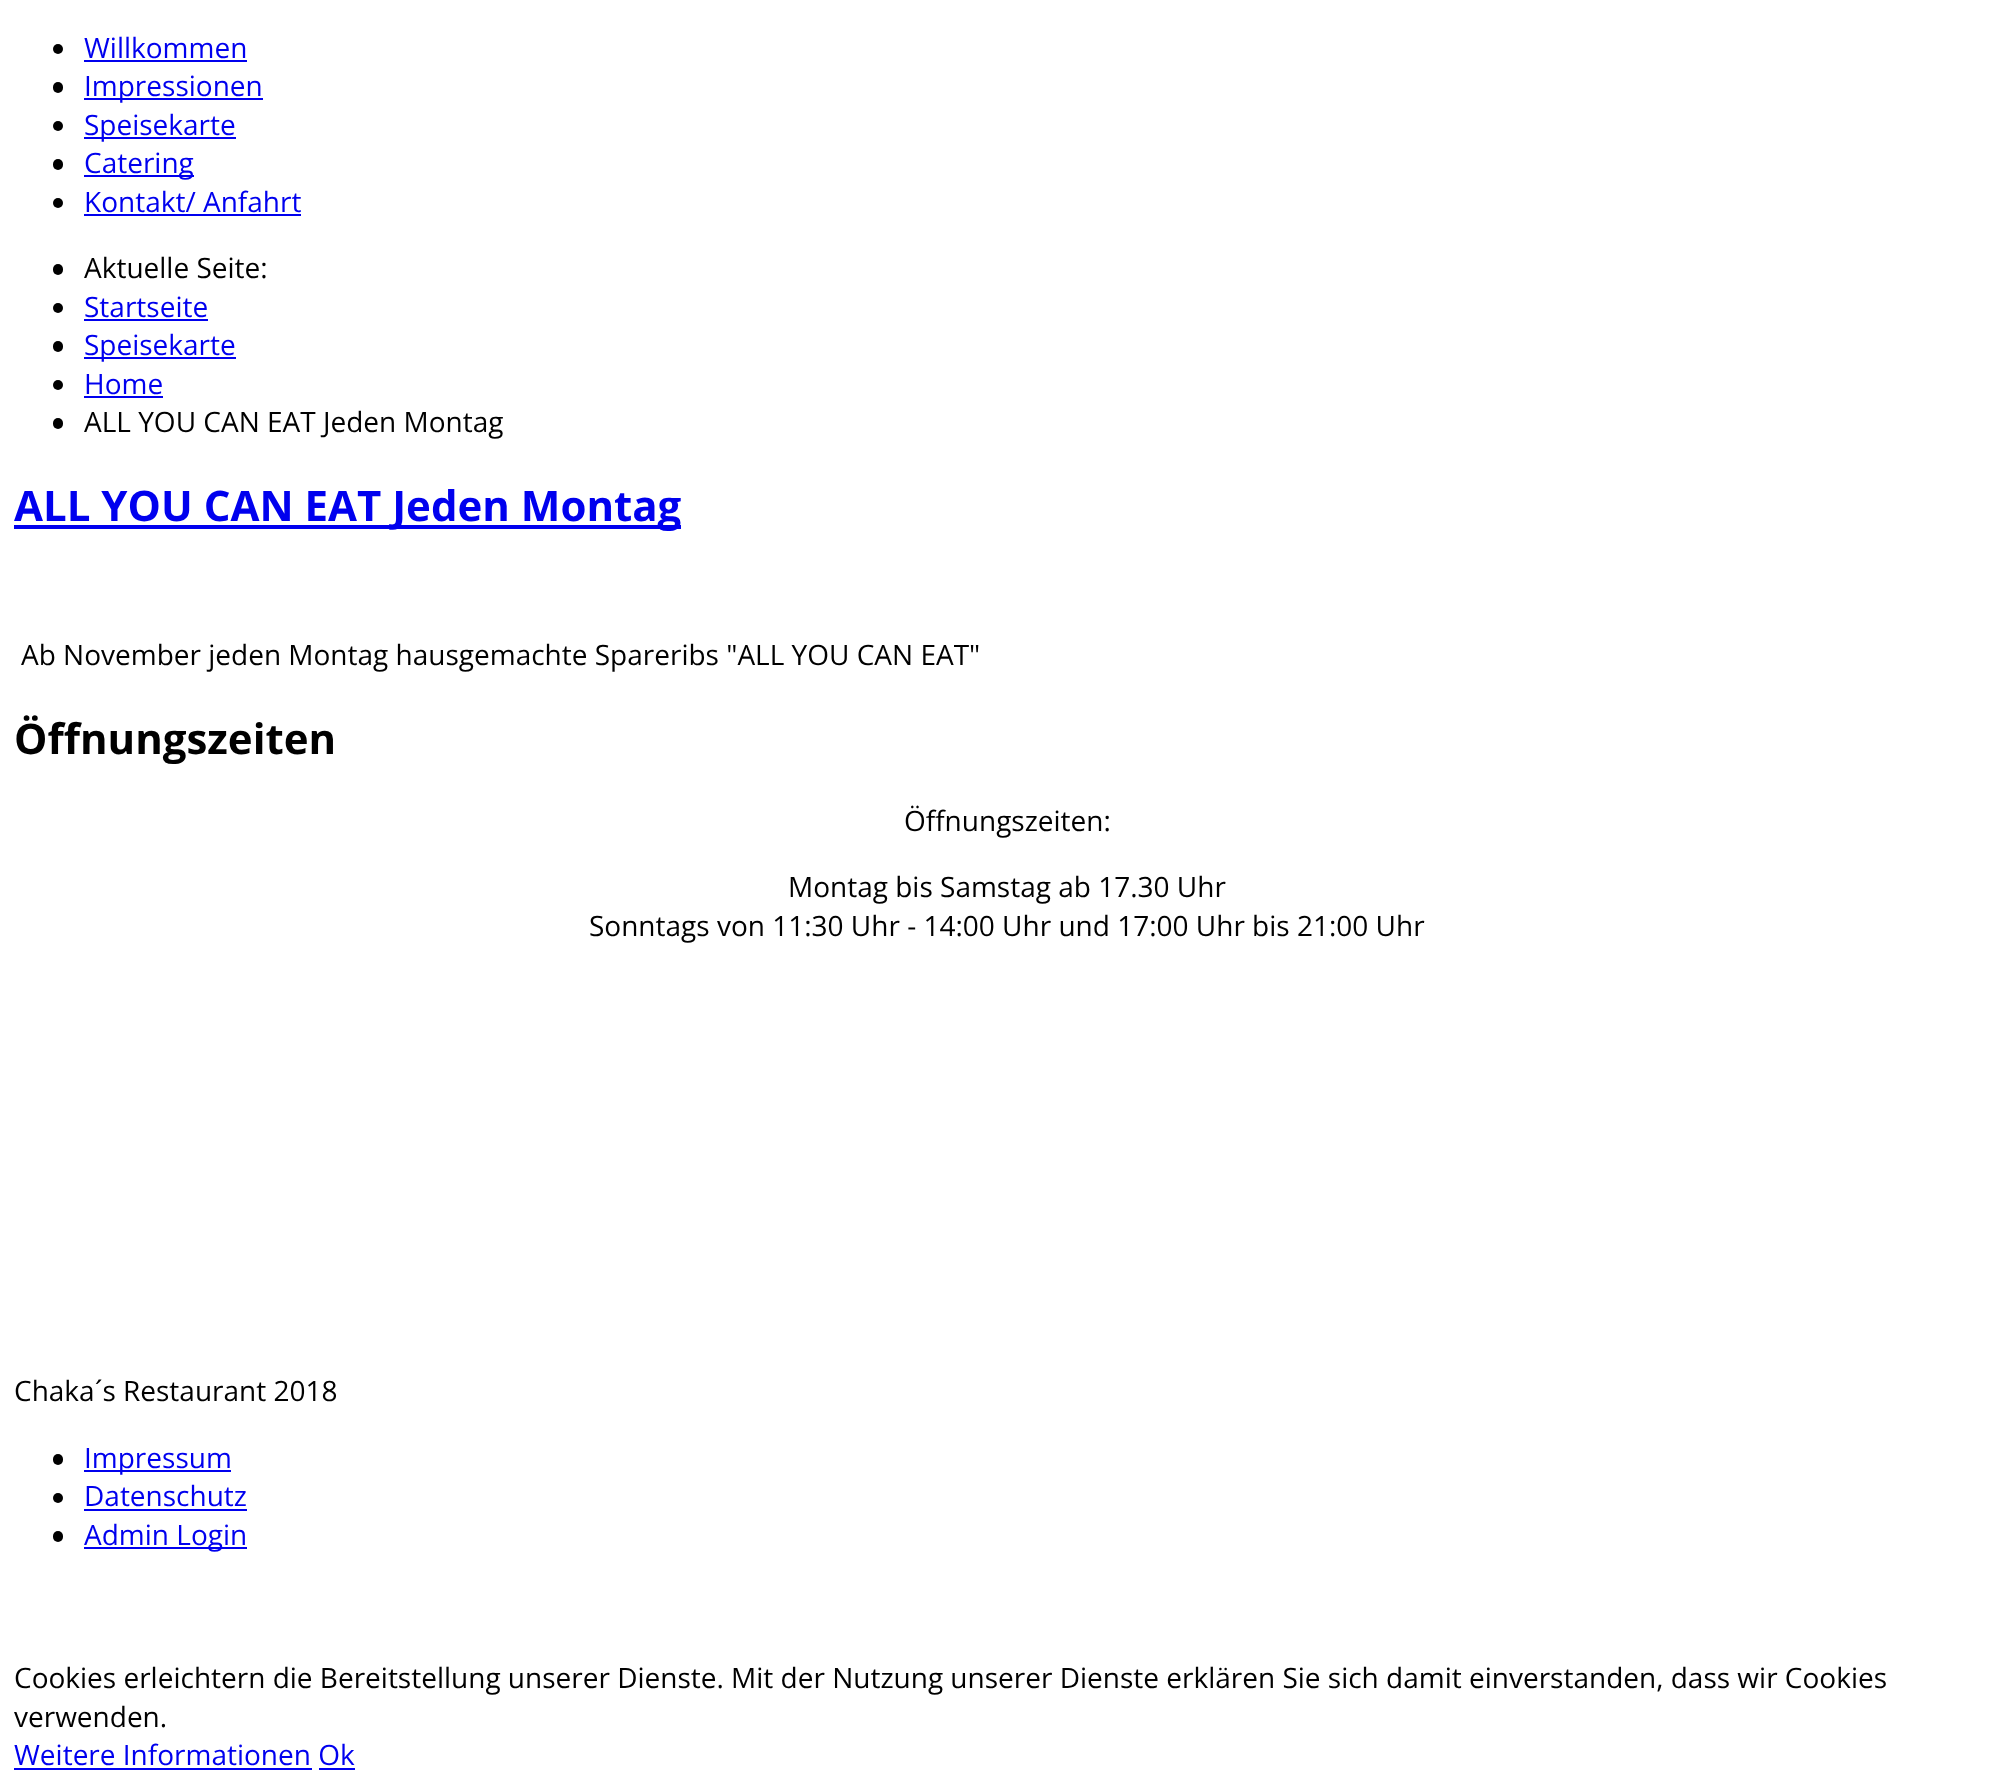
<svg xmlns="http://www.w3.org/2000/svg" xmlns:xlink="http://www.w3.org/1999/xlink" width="2014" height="1774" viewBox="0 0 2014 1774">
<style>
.cls-1{font:28px Open Sans;fill:#0000ee}
.cls-2{font:28px Open Sans;fill:#000000}
.cls-3{font:bold 42px Open Sans;fill:#0000ee}
.cls-4{font:bold 42px Open Sans;fill:#000000}
</style>
<rect width="100%" height="100%" fill="#ffffff"/>
<circle fill="#000000" cx="58" cy="49" r="5"/>
<rect fill="#0000ee" x="84" y="60" width="163" height="2"/>
<rect fill="#000000" x="53" y="82" width="10" height="11" rx="5"/>
<rect fill="#0000ee" x="84" y="98" width="179" height="2"/>
<circle fill="#000000" cx="58" cy="126" r="5"/>
<rect fill="#0000ee" x="84" y="137" width="152" height="2"/>
<rect fill="#000000" x="53" y="159" width="10" height="11" rx="5"/>
<rect fill="#0000ee" x="84" y="175" width="110" height="2"/>
<circle fill="#000000" cx="58" cy="203" r="5"/>
<rect fill="#0000ee" x="84" y="214" width="217" height="2"/>
<rect fill="#000000" x="53" y="264" width="10" height="11" rx="5"/>
<circle fill="#000000" cx="58" cy="308" r="5"/>
<rect fill="#0000ee" x="84" y="319" width="124" height="2"/>
<rect fill="#000000" x="53" y="341" width="10" height="11" rx="5"/>
<rect fill="#0000ee" x="84" y="357" width="152" height="2"/>
<circle fill="#000000" cx="58" cy="385" r="5"/>
<rect fill="#0000ee" x="84" y="396" width="79" height="2"/>
<rect fill="#000000" x="53" y="418" width="10" height="11" rx="5"/>
<rect fill="#0000ee" x="14" y="525" width="667" height="4"/>
<rect fill="#000000" x="53" y="1454" width="10" height="11" rx="5"/>
<rect fill="#0000ee" x="84" y="1470" width="147" height="2"/>
<circle fill="#000000" cx="58" cy="1498" r="5"/>
<rect fill="#0000ee" x="84" y="1509" width="163" height="2"/>
<rect fill="#000000" x="53" y="1531" width="10" height="11" rx="5"/>
<rect fill="#0000ee" x="84" y="1547" width="163" height="2"/>
<rect fill="#0000ee" x="14" y="1768" width="298" height="2"/>
<rect fill="#0000ee" x="319" y="1768" width="36" height="2"/>
<text class="cls-1"><tspan x="84" y="58">Willkommen</tspan><tspan x="84" y="96">Impressionen</tspan><tspan x="84" y="135">Speisekarte</tspan><tspan x="84" y="173">Catering</tspan><tspan x="84" y="212">Kontakt/ Anfahrt</tspan></text>
<text class="cls-2" x="84" y="278">Aktuelle Seite:</text>
<text class="cls-1"><tspan x="84" y="317">Startseite</tspan><tspan x="84" y="355">Speisekarte</tspan><tspan x="84" y="394">Home</tspan></text>
<text class="cls-2" x="84" y="432">ALL YOU CAN EAT Jeden Montag</text>
<text class="cls-3" x="14" y="521">ALL YOU CAN EAT Jeden Montag</text>
<text class="cls-2" x="21" y="665">Ab November jeden Montag hausgemachte Spareribs "ALL YOU CAN EAT"</text>
<text class="cls-4" x="14" y="754">Öffnungszeiten</text>
<text class="cls-2" x="904" y="831">Öffnungszeiten:</text>
<text class="cls-2" x="788" y="897">Montag bis Samstag ab 17.30 Uhr</text>
<text class="cls-2" x="589" y="936">Sonntags von 11:30 Uhr - 14:00 Uhr und 17:00 Uhr bis 21:00 Uhr</text>
<text class="cls-2" x="14" y="1401">Chaka´s Restaurant 2018</text>
<text class="cls-1"><tspan x="84" y="1468">Impressum</tspan><tspan x="84" y="1506">Datenschutz</tspan><tspan x="84" y="1545">Admin Login</tspan></text>
<text class="cls-2"><tspan x="14" y="1688">Cookies erleichtern die Bereitstellung unserer Dienste. Mit der Nutzung unserer Dienste erklären Sie sich damit einverstanden, dass wir Cookies</tspan><tspan x="14" y="1727">verwenden.</tspan></text>
<text class="cls-1" x="14" y="1765">Weitere Informationen Ok</text>
</svg>
